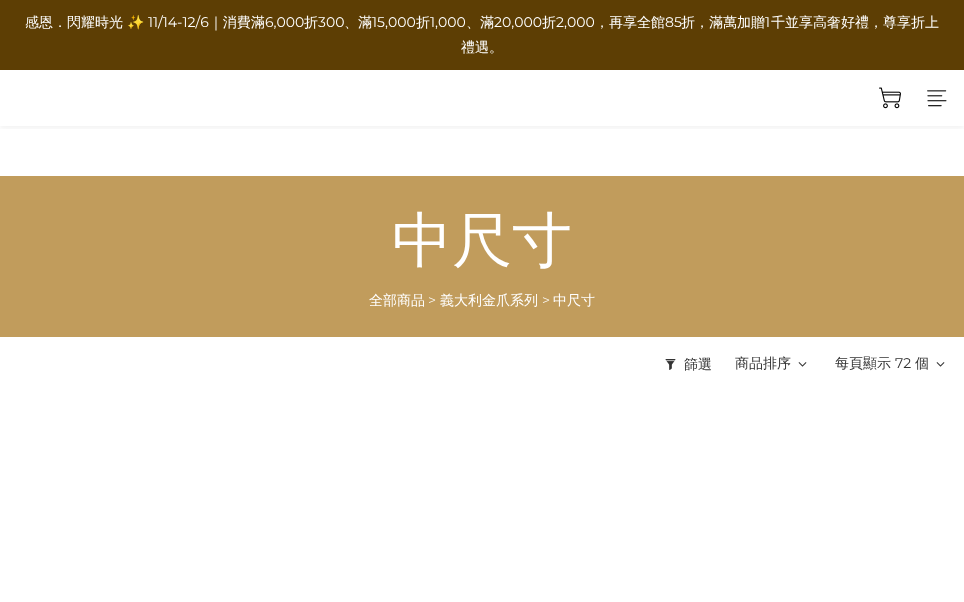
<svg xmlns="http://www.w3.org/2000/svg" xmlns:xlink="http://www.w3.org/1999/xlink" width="964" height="602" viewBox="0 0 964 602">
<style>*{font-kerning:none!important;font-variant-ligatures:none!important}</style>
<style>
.cls-1{font:500 14px WenQuanYi Zen Hei;fill:#ffffff}
.cls-2{font:14px Noto Color Emoji;fill:#ffffff}
.cls-3{font:14px Montserrat;fill:#ffffff}
.cls-4{font:500 60px WenQuanYi Zen Hei;fill:#ffffff}
.cls-5{font:500 14px WenQuanYi Zen Hei;fill:#333333}
.cls-6{font:14px Montserrat;fill:#333333}
</style>
<defs>
<clipPath id="clip1"><rect x="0" y="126" width="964" height="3"/></clipPath>
</defs>
<rect width="100%" height="100%" fill="#ffffff"/>
<g clip-path="url(#clip1)">
<rect fill="#000000" fill-opacity="0.06" filter="blur(3px)" x="0" y="72" width="964" height="56"/>
</g>
<rect fill="#5d3e04" x="0" y="0" width="964" height="70"/>
<image xlink:href="image0.png" x="879" y="87" width="22" height="22"/>
<image xlink:href="image1.png" x="927" y="90" width="20" height="17"/>
<rect fill="#c19c5c" x="0" y="176" width="964" height="161"/>
<image xlink:href="image2.png" x="665" y="359" width="11" height="11"/>
<image xlink:href="image3.png" x="798" y="362" width="9" height="5"/>
<image xlink:href="image3.png" x="936" y="362" width="9" height="5"/>
<text class="cls-1" x="25" y="27">感恩．閃耀時光</text>
<text class="cls-2" x="127" y="27">✨</text>
<text class="cls-3" x="148" y="27">11/14-12/6</text>
<text class="cls-1" x="209" y="27">｜消費滿</text>
<text class="cls-3" x="265" y="27">6,000</text>
<text class="cls-1" x="304" y="27">折</text>
<text class="cls-3" x="318" y="27">300</text>
<text class="cls-1" x="344" y="27">、滿</text>
<text class="cls-3" x="372" y="27">15,000</text>
<text class="cls-1" x="416" y="27">折</text>
<text class="cls-3" x="430" y="27">1,000</text>
<text class="cls-1" x="466" y="27">、滿</text>
<text class="cls-3" x="494" y="27">20,000</text>
<text class="cls-1" x="542" y="27">折</text>
<text class="cls-3" x="556" y="27">2,000</text>
<text class="cls-1" x="595" y="27">，再享全館</text>
<text class="cls-3" x="665" y="27">85</text>
<text class="cls-1" x="681" y="27">折，滿萬加贈</text>
<text class="cls-3" x="765" y="27">1</text>
<text class="cls-1" x="771" y="27">千並享高奢好禮，尊享折上</text>
<text class="cls-1" x="461" y="52">禮遇。</text>
<text class="cls-4" x="392" y="261">中尺寸</text>
<text class="cls-1" x="369" y="305">全部商品</text>
<text class="cls-3" x="428" y="305">&gt;</text>
<text class="cls-1" x="440" y="305">義大利金爪系列</text>
<text class="cls-3" x="542" y="305">&gt;</text>
<text class="cls-1" x="553" y="305">中尺寸</text>
<text class="cls-5" x="684" y="369">篩選</text>
<text class="cls-5" x="735" y="368">商品排序</text>
<text class="cls-5" x="835" y="368">每頁顯示</text>
<text class="cls-6" x="895" y="368">72</text>
<text class="cls-5" x="915" y="368">個</text>
</svg>
